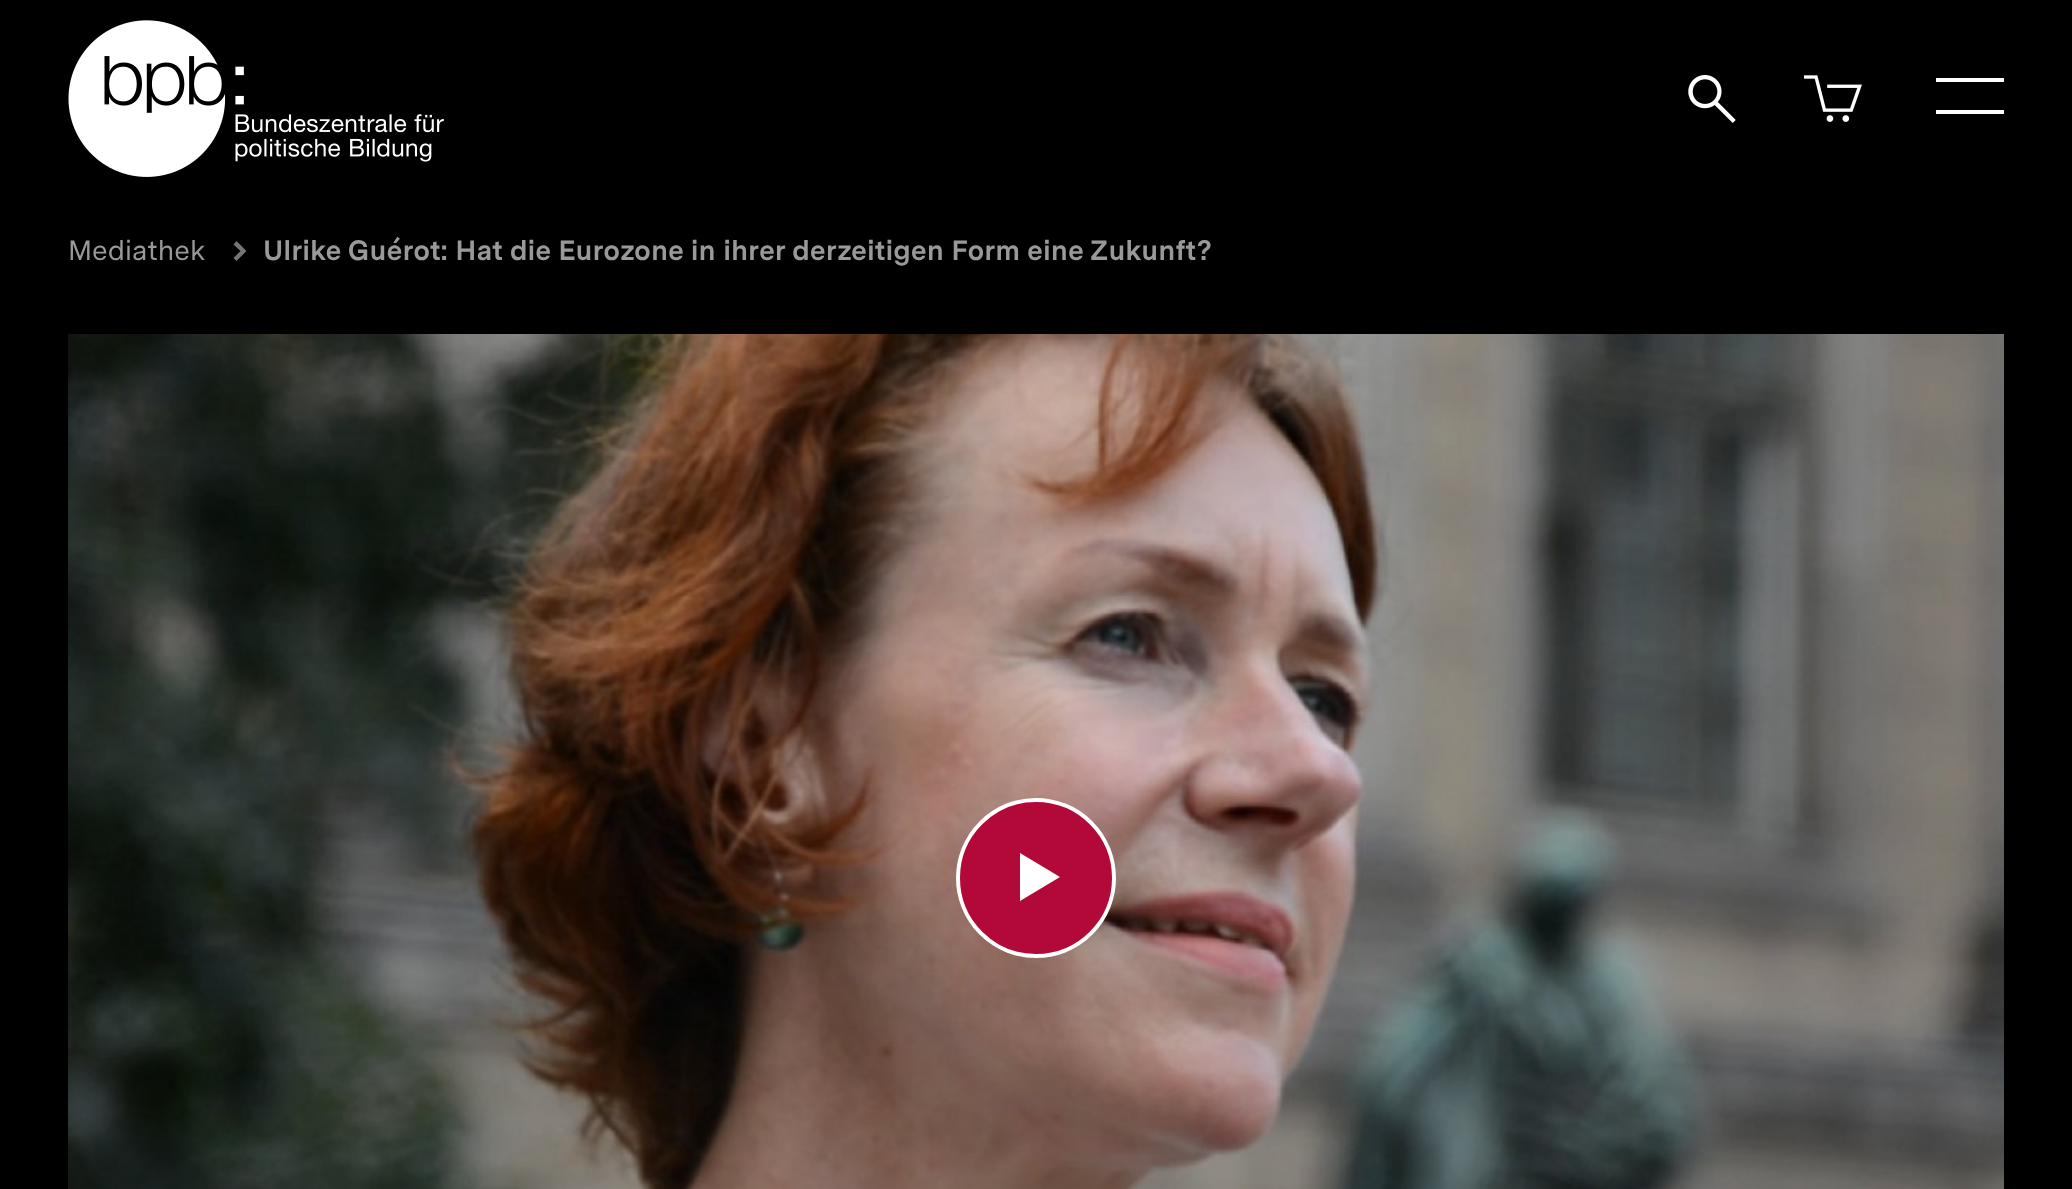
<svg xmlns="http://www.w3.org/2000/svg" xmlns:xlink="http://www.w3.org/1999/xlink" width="2072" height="1189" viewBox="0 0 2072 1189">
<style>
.cls-1{font:28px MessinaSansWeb;fill:#999999}
.cls-2{font:bold 28px MessinaSansWeb;fill:#999999}
</style>
<rect width="100%" height="100%" fill="#000000"/>
<image xlink:href="image0.png" x="68" y="20" width="376" height="157"/>
<image xlink:href="image1.png" x="1688" y="75" width="48" height="48"/>
<image xlink:href="image2.png" x="1804" y="75" width="58" height="47"/>
<rect fill="#ffffff" x="1936" y="78" width="68" height="4"/>
<rect fill="#ffffff" x="1936" y="110" width="68" height="4"/>
<path fill="#757575" d="M236.5 261L233.5 258L240.5 251L233.5 244.5L236.5 241L246.5 251Z"/>
<image xlink:href="image3.png" x="68" y="334" width="1936" height="855"/>
<circle fill="#b20938" stroke="#ffffff" stroke-width="4" cx="1036" cy="878" r="78"/>
<path fill="#ffffff" d="M1020 901V853L1060 877Z"/>
<text class="cls-1" x="68" y="260">Mediathek</text>
<text class="cls-2" x="263" y="260">Ulrike Guérot: Hat die Eurozone in ihrer derzeitigen Form eine Zukunft?</text>
</svg>
